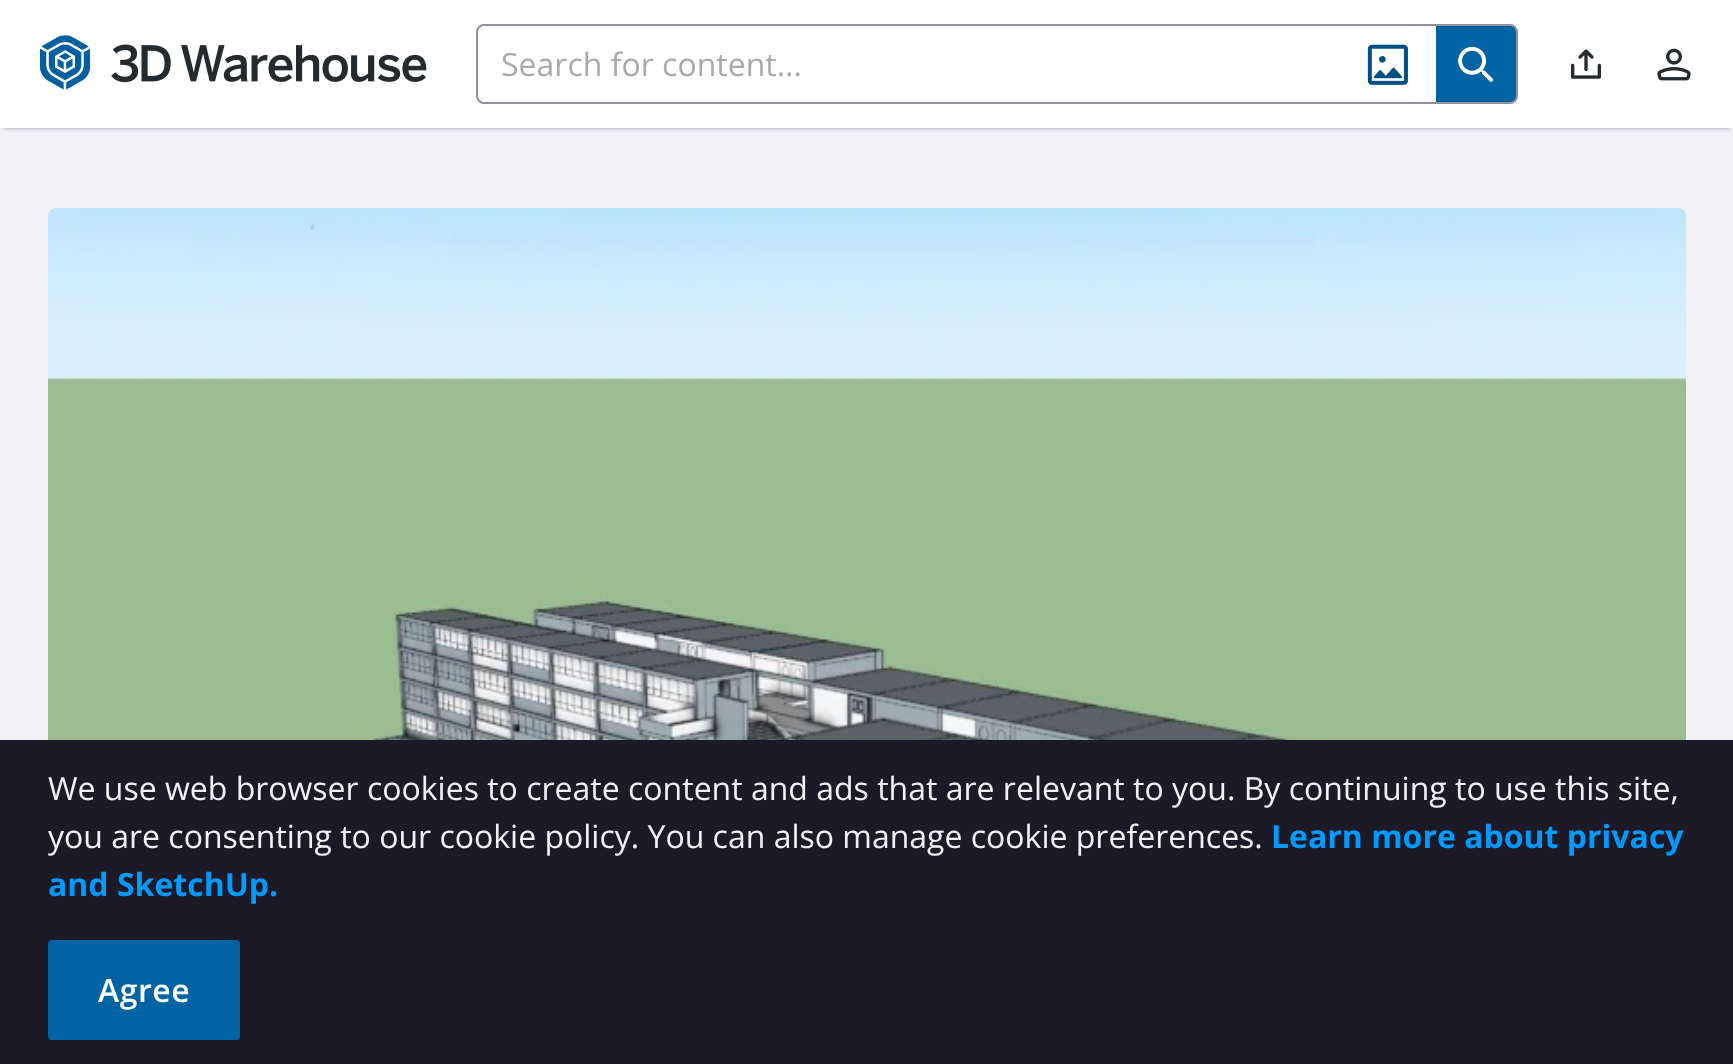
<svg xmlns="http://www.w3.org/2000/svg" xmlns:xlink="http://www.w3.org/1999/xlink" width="1733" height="1064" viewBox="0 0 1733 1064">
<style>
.cls-1{font:32px Open Sans;fill:#a8aaab}
.cls-2{font:32px Open Sans;fill:#f1f1f6}
.cls-3{font:bold 32px Open Sans;fill:#0099fe}
.cls-4{font:600 32px Open Sans;letter-spacing:0.5px;fill:#ffffff}
</style>
<rect width="100%" height="100%" fill="#f1f1f6"/>
<rect fill="#90939f" filter="blur(2px)" x="4" y="8" width="1726" height="120"/>
<rect fill="#ffffff" x="0" y="0" width="1733" height="128"/>
<image xlink:href="image0.png" x="40" y="35" width="51" height="55"/>
<image xlink:href="image1.png" x="111" y="44" width="316" height="39"/>
<rect fill="none" stroke="#90939f" stroke-width="2" x="477" y="25" width="1040" height="78" rx="7"/>
<image xlink:href="image2.png" x="1367" y="44" width="41" height="41"/>
<path fill="#0063a3" d="M1436 26H1510C1513.5 26 1516 28.5 1516 32V96C1516 99.5 1513.5 102 1510 102H1436Z"/>
<image xlink:href="image3.png" x="1458" y="46" width="36" height="36"/>
<image xlink:href="image4.png" x="1571" y="49" width="30" height="30"/>
<image xlink:href="image5.png" x="1657" y="48" width="34" height="33"/>
<image xlink:href="image6.png" x="48" y="208" width="1638" height="532"/>
<rect fill="#1b1a26" x="0" y="740" width="1733" height="324"/>
<rect fill="#0063a3" stroke="#0063a3" stroke-width="2" x="49" y="941" width="190" height="98" rx="3"/>
<text class="cls-1" x="501" y="76">Search for content...</text>
<text class="cls-2"><tspan x="48" y="800">We use web browser cookies to create content and ads that are relevant to you. By continuing to use this site,</tspan><tspan x="48" y="848">you are consenting to our cookie policy. You can also manage cookie preferences.</tspan></text>
<text class="cls-3" x="1271" y="848">Learn more about privacy</text>
<text class="cls-3" x="48" y="896">and SketchUp.</text>
<text class="cls-4" x="98" y="1002">Agree</text>
</svg>
